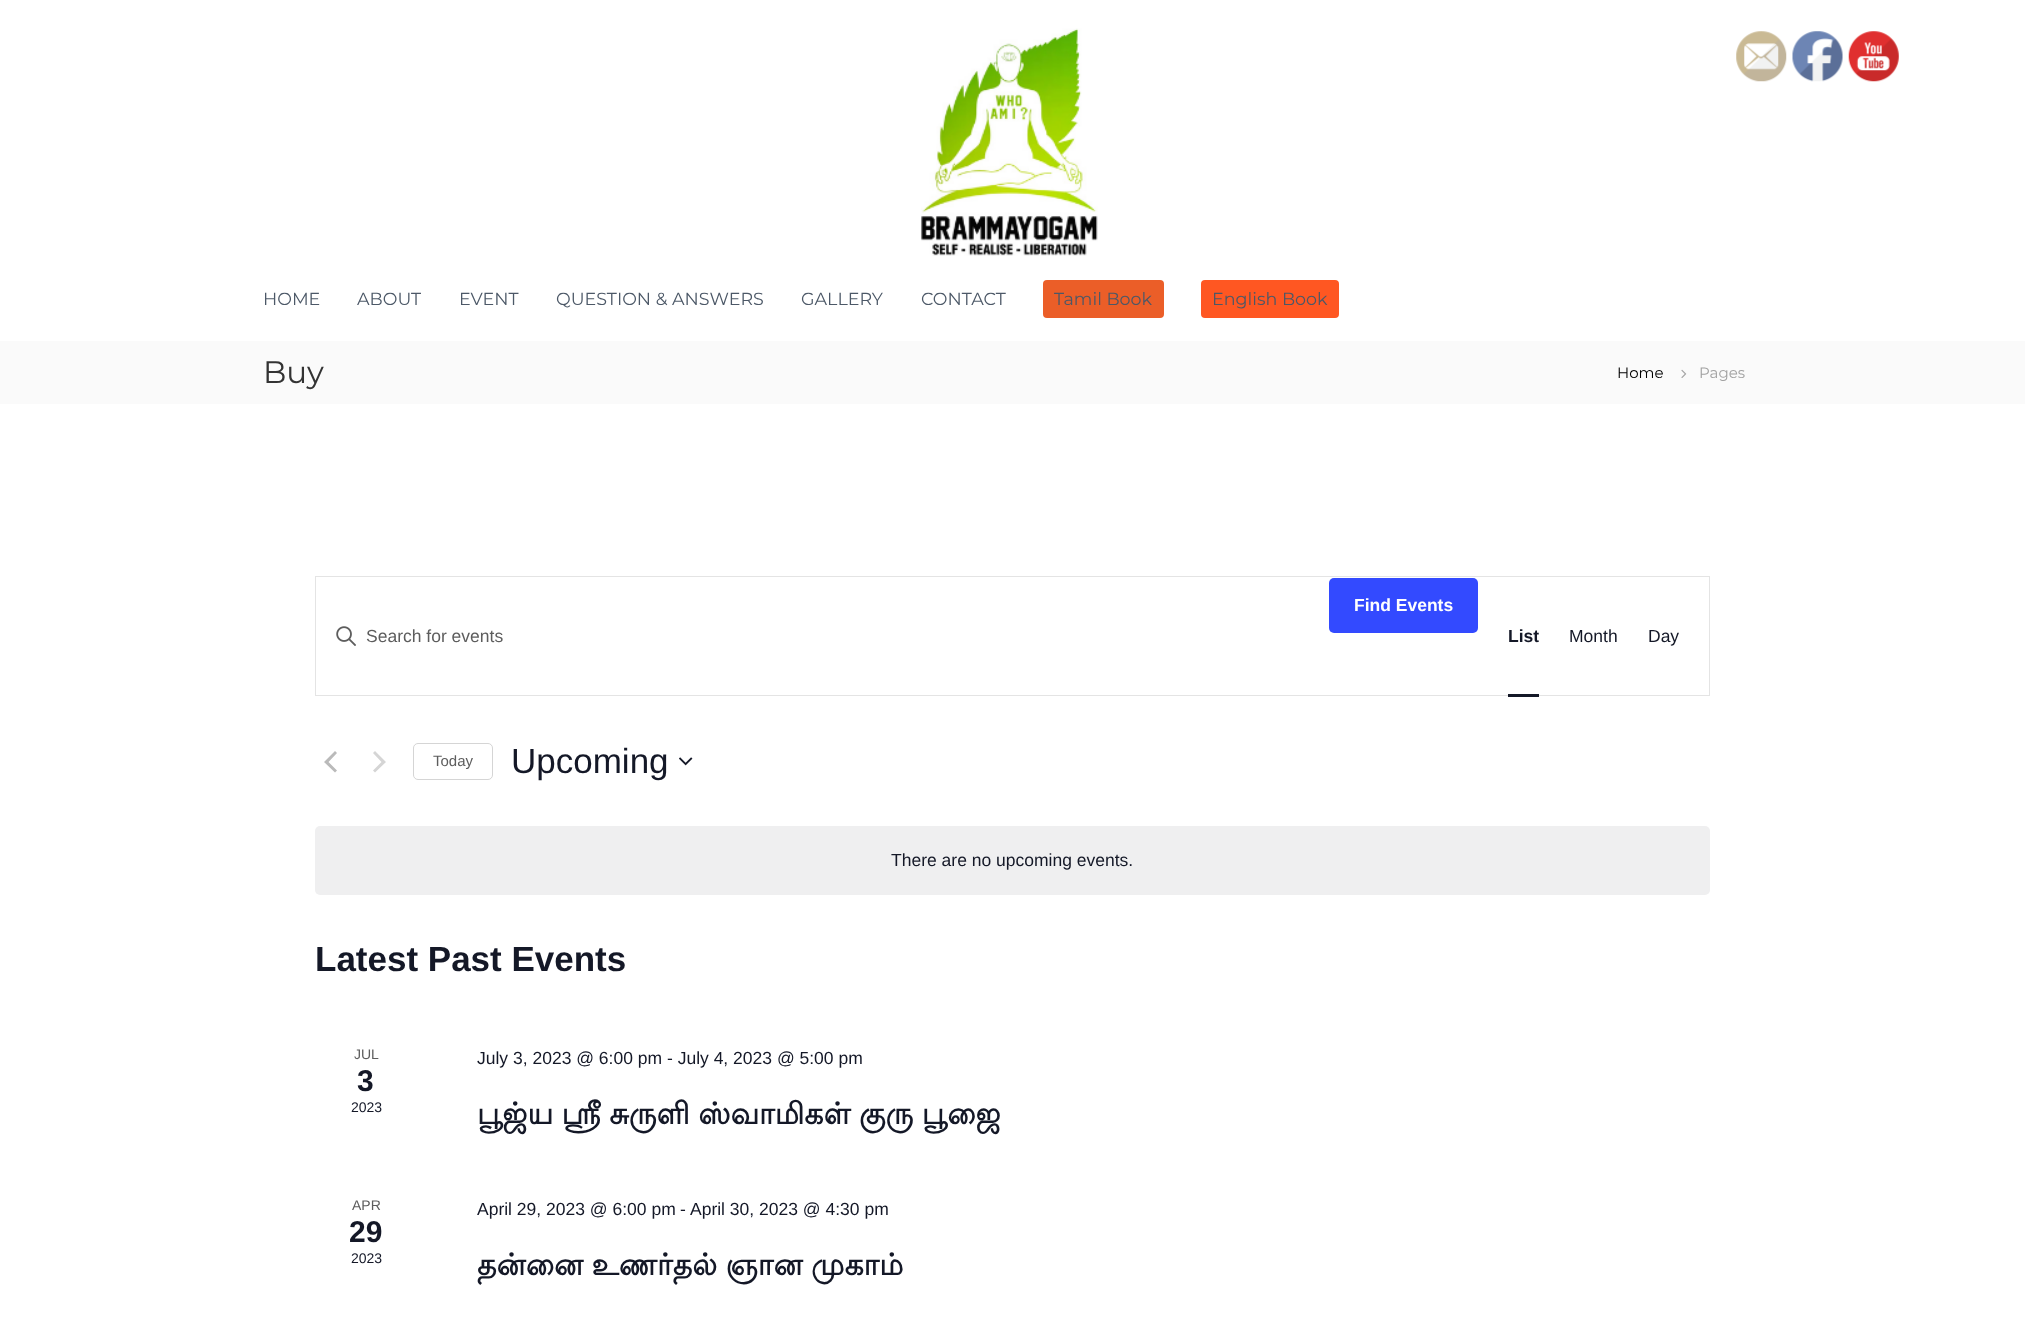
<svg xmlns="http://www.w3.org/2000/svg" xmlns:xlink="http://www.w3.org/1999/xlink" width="2025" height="1324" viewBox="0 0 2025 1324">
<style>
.cls-1{font:17.5px Montserrat;fill:#4c5867}
.cls-2{font:31px Montserrat;fill:#333333}
.cls-3{font:15px Montserrat;fill:#000000}
.cls-4{font:15px Montserrat;fill:#a1a1a1}
.cls-5{font:bold 17.5px Liberation Sans;fill:#ffffff}
.cls-6{font:17.5px Liberation Sans;fill:#5d5d5d}
.cls-7{font:bold 17.5px Liberation Sans;fill:#141827}
.cls-8{font:17.5px Liberation Sans;fill:#141827}
.cls-9{font:15px Liberation Sans;fill:#5d5d5d}
.cls-10{font:35px Liberation Sans;fill:#141827}
.cls-11{font:bold 35px Liberation Sans;fill:#141827}
.cls-12{font:14px Liberation Sans;fill:#5d5d5d}
.cls-13{font:bold 30px Liberation Sans;fill:#141827}
.cls-14{font:14px Liberation Sans;fill:#141827}
.cls-15{font:bold 30px Lohit Tamil;fill:#141827}
</style>
<rect width="100%" height="100%" fill="#ffffff"/>
<image xlink:href="image0.png" x="1736" y="31" width="51" height="51"/>
<image xlink:href="image1.png" x="1792" y="31" width="51" height="51"/>
<image xlink:href="image2.png" x="1848" y="31" width="51" height="51"/>
<image xlink:href="image3.png" x="921" y="28" width="177" height="228"/>
<rect fill="#eb5e28" x="1043" y="280" width="121" height="38" rx="4"/>
<rect fill="#ff5722" x="1201" y="280" width="138" height="38" rx="4"/>
<rect fill="#fafafa" x="0" y="341" width="2025" height="63"/>
<image xlink:href="image4.png" x="1681" y="369" width="6" height="9"/>
<rect fill="none" stroke="#e4e4e4" x="315.5" y="576.5" width="1394" height="119"/>
<rect fill="#334aff" x="1329" y="578" width="149" height="55" rx="5"/>
<image xlink:href="image5.png" x="336" y="626" width="20" height="20"/>
<rect fill="#141827" x="1508" y="694" width="31" height="3"/>
<path fill="#bababa" d="M337 770.5L335 772.5L324 762L335 751L337 753L328.5 762Z"/>
<path fill="#d5d5d5" d="M373 753L375 751L386 762L375 772.5L373 770.5L381.5 762Z"/>
<rect fill="none" stroke="#d5d5d5" x="413.5" y="743.5" width="79" height="36" rx="4.5"/>
<image xlink:href="image6.png" x="679" y="757" width="14" height="9"/>
<rect fill="#efeff0" x="315" y="826" width="1395" height="69" rx="5"/>
<text class="cls-1" x="263" y="305">HOME</text>
<text class="cls-1" x="357" y="305">ABOUT</text>
<text class="cls-1" x="459" y="305">EVENT</text>
<text class="cls-1" x="556" y="305">QUESTION &amp; ANSWERS</text>
<text class="cls-1" x="801" y="305">GALLERY</text>
<text class="cls-1" x="921" y="305">CONTACT</text>
<text class="cls-1" x="1054" y="305">Tamil Book</text>
<text class="cls-1" x="1212" y="305">English Book</text>
<text class="cls-2" x="263" y="383">Buy</text>
<text class="cls-3" x="1617" y="378">Home</text>
<text class="cls-4" x="1699" y="378">Pages</text>
<text class="cls-5" x="1354" y="611">Find Events</text>
<text class="cls-6" x="366" y="642">Search for events</text>
<text class="cls-7" x="1508" y="642">List</text>
<text class="cls-8" x="1569" y="642">Month</text>
<text class="cls-8" x="1648" y="642">Day</text>
<text class="cls-9" x="433" y="766">Today</text>
<text class="cls-10" x="511" y="773">Upcoming</text>
<text class="cls-8" x="891" y="866">There are no upcoming events.</text>
<text class="cls-11" x="315" y="971">Latest Past Events</text>
<text class="cls-12" x="354" y="1059">JUL</text>
<text class="cls-13" x="357" y="1091">3</text>
<text class="cls-14" x="351" y="1112">2023</text>
<text class="cls-8" x="477" y="1064">July 3, 2023 @ 6:00 pm - July 4, 2023 @ 5:00 pm</text>
<text class="cls-15" x="477" y="1124" word-spacing="-0.5">பூஜ்ய ஸ்ரீ சுருளி ஸ்வாமிகள் குரு பூஜை</text>
<text class="cls-12" x="352" y="1210">APR</text>
<text class="cls-13" x="349" y="1242">29</text>
<text class="cls-14" x="351" y="1263">2023</text>
<text class="cls-8" x="477" y="1215">April 29, 2023 @ 6:00 pm</text>
<text class="cls-8" x="680" y="1215">-</text>
<text class="cls-8" x="690" y="1215">April 30, 2023 @ 4:30 pm</text>
<text class="cls-15" x="477" y="1275" word-spacing="-0.5">தன்னை உணர்தல் ஞான முகாம்</text>
</svg>
